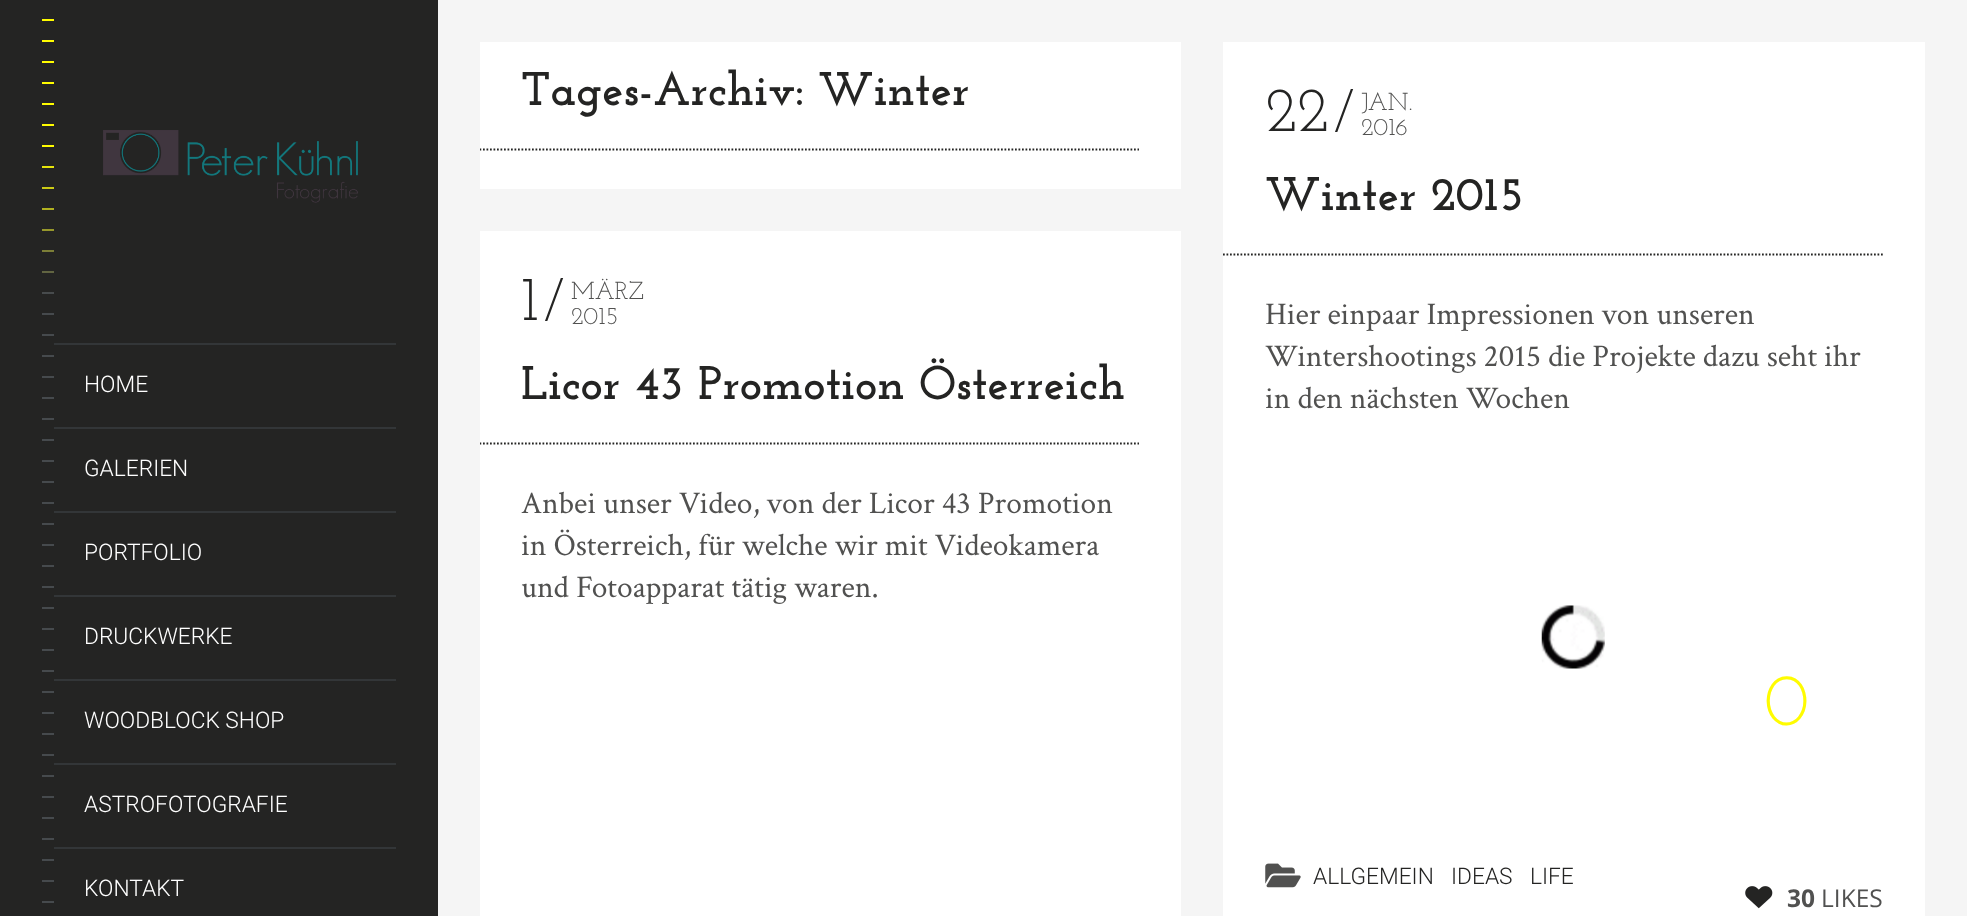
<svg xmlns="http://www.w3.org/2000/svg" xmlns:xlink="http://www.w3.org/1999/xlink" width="1967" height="916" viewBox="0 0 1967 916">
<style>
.cls-1{font:300 22.75px Roboto;fill:#ffffff}
.cls-2{font:100 47.25px Josefin Slab;fill:#242423}
.cls-3{font:100 63px 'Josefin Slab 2';fill:#242423}
.cls-4{font:100 57px 'Josefin Slab 2';fill:#242423}
.cls-5{font:100 24.5px 'Josefin Slab 2';fill:#515150}
.cls-6{font:31.5px Crimson Text;fill:#515150}
.cls-7{font:100 74px 'Josefin Slab 2';fill:#fffc00}
.cls-8{font:300 22.75px Roboto;fill:#242423}
.cls-9{font:bold 24.5px Open Sans;fill:#515150}
.cls-10{font:24.5px Open Sans;fill:#515150}
</style>
<defs>
<linearGradient id="g1" gradientUnits="userSpaceOnUse" x1="43" y1="0" x2="43" y2="294"><stop offset="0.5" stop-color="#fffc00"/><stop offset="1" stop-color="#464a4d"/></linearGradient>
<clipPath id="clip1"><rect x="480" y="42" width="701" height="147"/></clipPath>
<clipPath id="clip2"><rect x="480" y="231" width="701" height="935"/></clipPath>
</defs>
<rect width="100%" height="100%" fill="#f5f5f5"/>
<rect fill="#242423" x="0" y="0" width="438" height="916"/>
<rect fill="#464a4d" x="42" y="313" width="12" height="590"/>
<rect fill="url(#g1)" x="42" y="19" width="12" height="275"/>
<image xlink:href="image0.png" x="42" y="0" width="12" height="916"/>
<image xlink:href="image1.png" x="103" y="130" width="255" height="73"/>
<rect fill="#333638" x="54" y="343" width="342" height="2"/>
<rect fill="#333638" x="54" y="427" width="342" height="2"/>
<rect fill="#333638" x="54" y="511" width="342" height="2"/>
<rect fill="#333638" x="54" y="595" width="342" height="2"/>
<rect fill="#333638" x="54" y="679" width="342" height="2"/>
<rect fill="#333638" x="54" y="763" width="342" height="2"/>
<rect fill="#333638" x="54" y="847" width="342" height="2"/>
<rect fill="#ffffff" x="480" y="42" width="701" height="147"/>
<g clip-path="url(#clip1)">
<path fill="none" stroke="#242423" stroke-width="1.8" stroke-dasharray="1.75 1.75" d="M479.5 149.5H1139"/>
</g>
<rect fill="#ffffff" x="480" y="231" width="701" height="685"/>
<g clip-path="url(#clip2)">
<path fill="none" stroke="#242423" stroke-width="1.8" stroke-dasharray="1.75 1.75" d="M479.5 443.5H1139"/>
</g>
<rect fill="#ffffff" x="1223" y="42" width="702" height="874"/>
<path fill="none" stroke="#242423" stroke-width="1.8" stroke-dasharray="1.75 1.75" d="M1223 254.5H1883"/>
<image xlink:href="image2.png" x="1541" y="605" width="64" height="64"/>
<image xlink:href="image3.png" x="1265" y="863" width="36" height="25"/>
<image xlink:href="image4.png" x="1745" y="886" width="28" height="23"/>
<text class="cls-1" x="84" y="392">HOME</text>
<text class="cls-1" x="84" y="476">GALERIEN</text>
<text class="cls-1" x="84" y="560">PORTFOLIO</text>
<text class="cls-1" x="84" y="644">DRUCKWERKE</text>
<text class="cls-1" x="84" y="728">WOODBLOCK SHOP</text>
<text class="cls-1" x="84" y="812">ASTROFOTOGRAFIE</text>
<text class="cls-1" x="84" y="896">KONTAKT</text>
<text class="cls-2" x="521" y="105">Tages-Archiv: Winter</text>
<text class="cls-3" x="521" y="320">1</text>
<text class="cls-4" x="544" y="320">/</text>
<text class="cls-5"><tspan x="571" y="299">MÄRZ</tspan><tspan x="571" y="324">2015</tspan></text>
<text class="cls-2" x="521" y="399">Licor 43 Promotion Österreich</text>
<text class="cls-6"><tspan x="521" y="513">Anbei unser Video, von der Licor 43 Promotion</tspan><tspan x="521" y="555">in Österreich, für welche wir mit Videokamera</tspan><tspan x="521" y="597">und Fotoapparat tätig waren.</tspan></text>
<text class="cls-3" x="1265" y="131">22</text>
<text class="cls-4" x="1334" y="131">/</text>
<text class="cls-5"><tspan x="1361" y="110">JAN.</tspan><tspan x="1361" y="135">2016</tspan></text>
<text class="cls-2" x="1265" y="210">Winter 2015</text>
<text class="cls-6"><tspan x="1265" y="324">Hier einpaar Impressionen von unseren</tspan><tspan x="1265" y="366">Wintershootings 2015 die Projekte dazu seht ihr</tspan><tspan x="1265" y="408">in den nächsten Wochen</tspan></text>
<text class="cls-7" x="1764" y="725">0</text>
<text class="cls-8" x="1313" y="884">ALLGEMEIN</text>
<text class="cls-8" x="1451" y="884">IDEAS</text>
<text class="cls-8" x="1530" y="884">LIFE</text>
<text class="cls-9" x="1787" y="907">30</text>
<text class="cls-10" x="1821" y="907">LIKES</text>
</svg>
